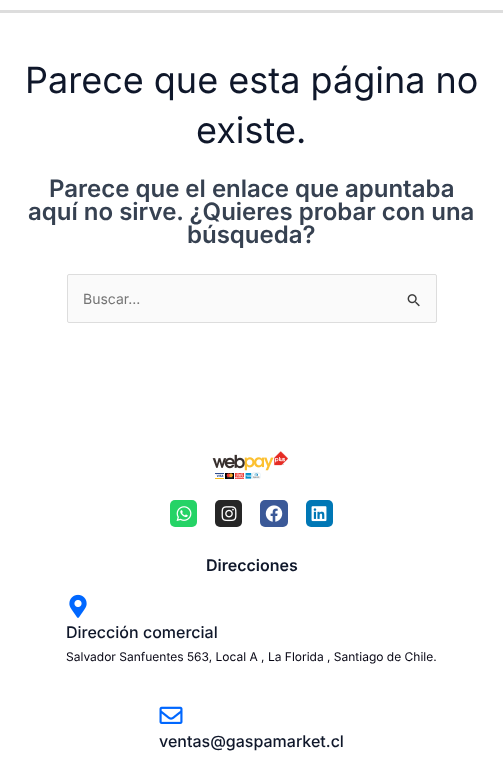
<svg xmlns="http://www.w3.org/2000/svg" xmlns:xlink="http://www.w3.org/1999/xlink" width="503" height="763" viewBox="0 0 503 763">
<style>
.cls-1{font:36px Inter;fill:#0f172a}
.cls-2{font:600 24px Inter;fill:#364151}
.cls-3{font:14px Inter;fill:#757575}
.cls-4{font:600 16px Inter;fill:#0f172a}
.cls-5{font:500 16px Inter;fill:#0f172a}
.cls-6{font:12px Inter;fill:#070614}
</style>
<rect width="100%" height="100%" fill="#ffffff"/>
<rect fill="#dddddd" x="0" y="10" width="503" height="3"/>
<rect fill="#fafafa" stroke="#dddddd" x="67.5" y="274.5" width="369" height="48" rx="1.5"/>
<image xlink:href="image0.png" x="407" y="294" width="13" height="13"/>
<image xlink:href="image1.png" x="212" y="451" width="76" height="28"/>
<rect fill="#25d366" x="170" y="500" width="27" height="27" rx="5"/>
<image xlink:href="image2.png" x="176" y="506" width="16" height="15"/>
<rect fill="#262626" x="215" y="500" width="27" height="27" rx="5"/>
<image xlink:href="image3.png" x="221" y="506" width="16" height="16"/>
<rect fill="#3b5998" x="260" y="500" width="28" height="27" rx="5"/>
<image xlink:href="image4.png" x="265" y="505" width="18" height="17"/>
<rect fill="#0077b5" x="306" y="500" width="27" height="27" rx="5"/>
<image xlink:href="image5.png" x="311" y="506" width="16" height="16"/>
<image xlink:href="image6.png" x="69" y="594" width="18" height="24"/>
<image xlink:href="image7.png" x="159" y="706" width="24" height="18"/>
<text class="cls-1" x="25" y="93">Parece que esta página no</text>
<text class="cls-1" x="196" y="143">existe.</text>
<text class="cls-2" x="49" y="197">Parece que el enlace que apuntaba</text>
<text class="cls-2" x="28" y="220">aquí no sirve. ¿Quieres probar con una</text>
<text class="cls-2" x="187" y="243">búsqueda?</text>
<text class="cls-3" x="83" y="304">Buscar...</text>
<text class="cls-4" x="206" y="571">Direcciones</text>
<text class="cls-5" x="66" y="638">Dirección comercial</text>
<text class="cls-6" x="66" y="661">Salvador Sanfuentes 563, Local A , La Florida , Santiago de Chile.</text>
<text class="cls-5" x="159" y="747">ventas@gaspamarket.cl</text>
</svg>
